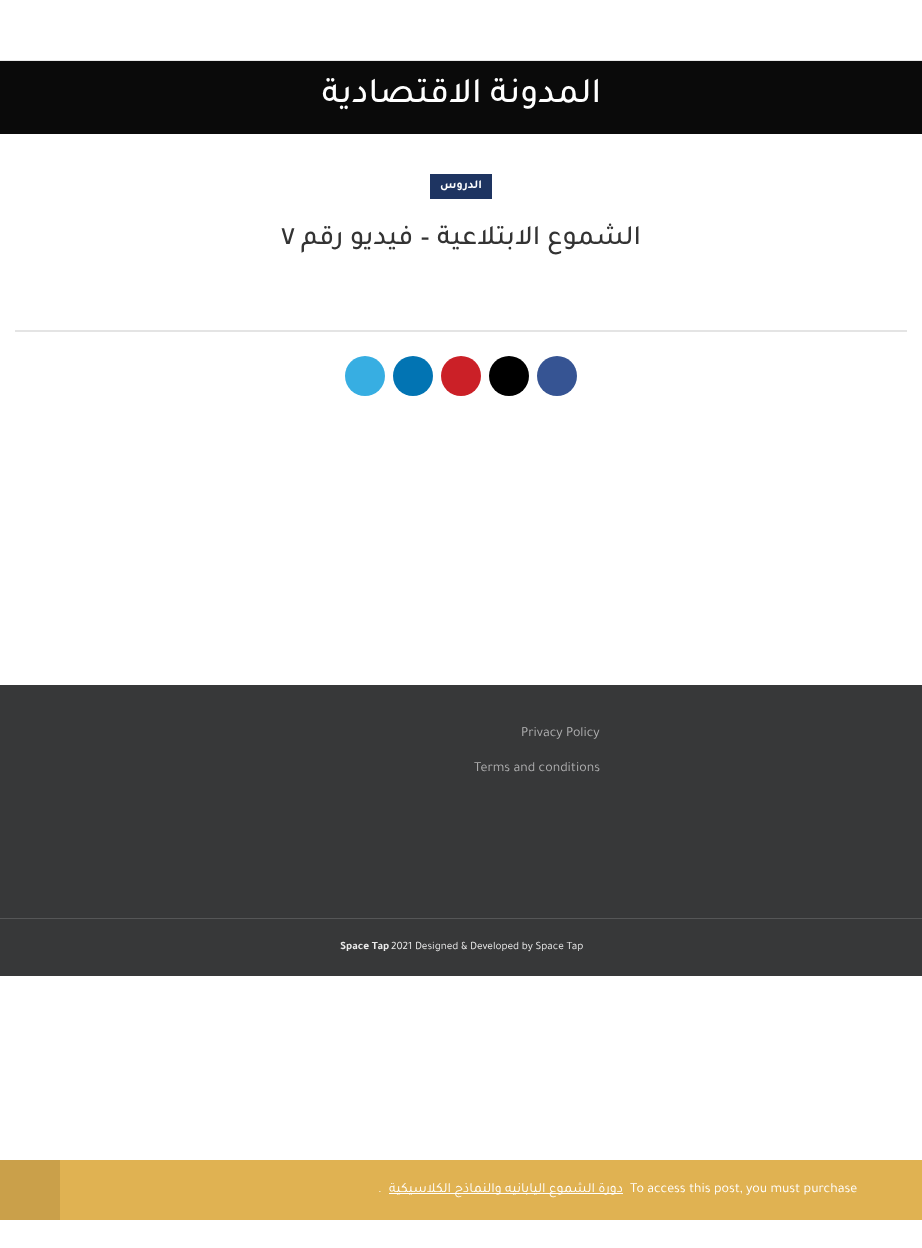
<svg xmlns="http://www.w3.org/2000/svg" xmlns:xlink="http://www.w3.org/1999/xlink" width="922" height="1248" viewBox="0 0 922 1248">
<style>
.cls-1{font:500 36px Tajawal;direction:rtl;fill:#ffffff}
.cls-2{font:bold 12px Tajawal;direction:rtl;fill:#ffffff}
.cls-3{font:500 28px Tajawal;fill:#333333}
.cls-4{font:500 28px Tajawal;direction:rtl;fill:#333333}
.cls-5{font:14px Tajawal;fill:#ffffff}
.cls-6{font:14px Tajawal;direction:rtl;fill:#ffffff}
.cls-7{font:14px Tajawal;fill:#afafb0}
.cls-8{font:bold 11.25px Tajawal;fill:#ebebeb}
.cls-9{font:11.25px Tajawal;fill:#ebebeb}
</style>
<rect width="100%" height="100%" fill="#ffffff"/>
<rect fill="#e8e8e8" x="0" y="60" width="922" height="1"/>
<rect fill="#0a0a0a" x="0" y="61" width="922" height="73"/>
<rect fill="#1e3461" x="430" y="174" width="62" height="25"/>
<rect fill="#e0b252" x="60" y="1160" width="862" height="60"/>
<rect fill="#caa04a" x="0" y="1160" width="60" height="60"/>
<rect fill="#ffffff" x="389" y="1193" width="234" height="1"/>
<rect fill="#e4e4e4" x="15" y="330" width="892" height="2"/>
<circle fill="#37aee2" cx="365" cy="376" r="20"/>
<circle fill="#0274b3" cx="413" cy="376" r="20"/>
<circle fill="#cb2027" cx="461" cy="376" r="20"/>
<circle fill="#000000" cx="509" cy="376" r="20"/>
<circle fill="#365493" cx="557" cy="376" r="20"/>
<rect fill="#373839" x="0" y="685" width="922" height="291"/>
<rect fill="#555657" x="0" y="918" width="922" height="1"/>
<text class="cls-1" x="601" y="102">المدونة الاقتصادية</text>
<text class="cls-2" x="482" y="188">الدروس</text>
<text class="cls-3" x="281" y="244">٧</text>
<text class="cls-4" x="641" y="244">الشموع الابتلاعية – فيديو رقم</text>
<text class="cls-5" x="378" y="1192">.</text>
<text class="cls-6" x="623" y="1192">دورة الشموع اليابانيه والنماذج الكلاسيكية</text>
<text class="cls-5" x="630" y="1192">To access this post, you must purchase</text>
<text class="cls-7" x="521" y="736">Privacy Policy</text>
<text class="cls-7" x="474" y="771">Terms and conditions</text>
<text class="cls-8" x="340" y="949">Space Tap</text>
<text class="cls-9" x="391" y="949">2021 Designed &amp; Developed by Space Tap</text>
</svg>
